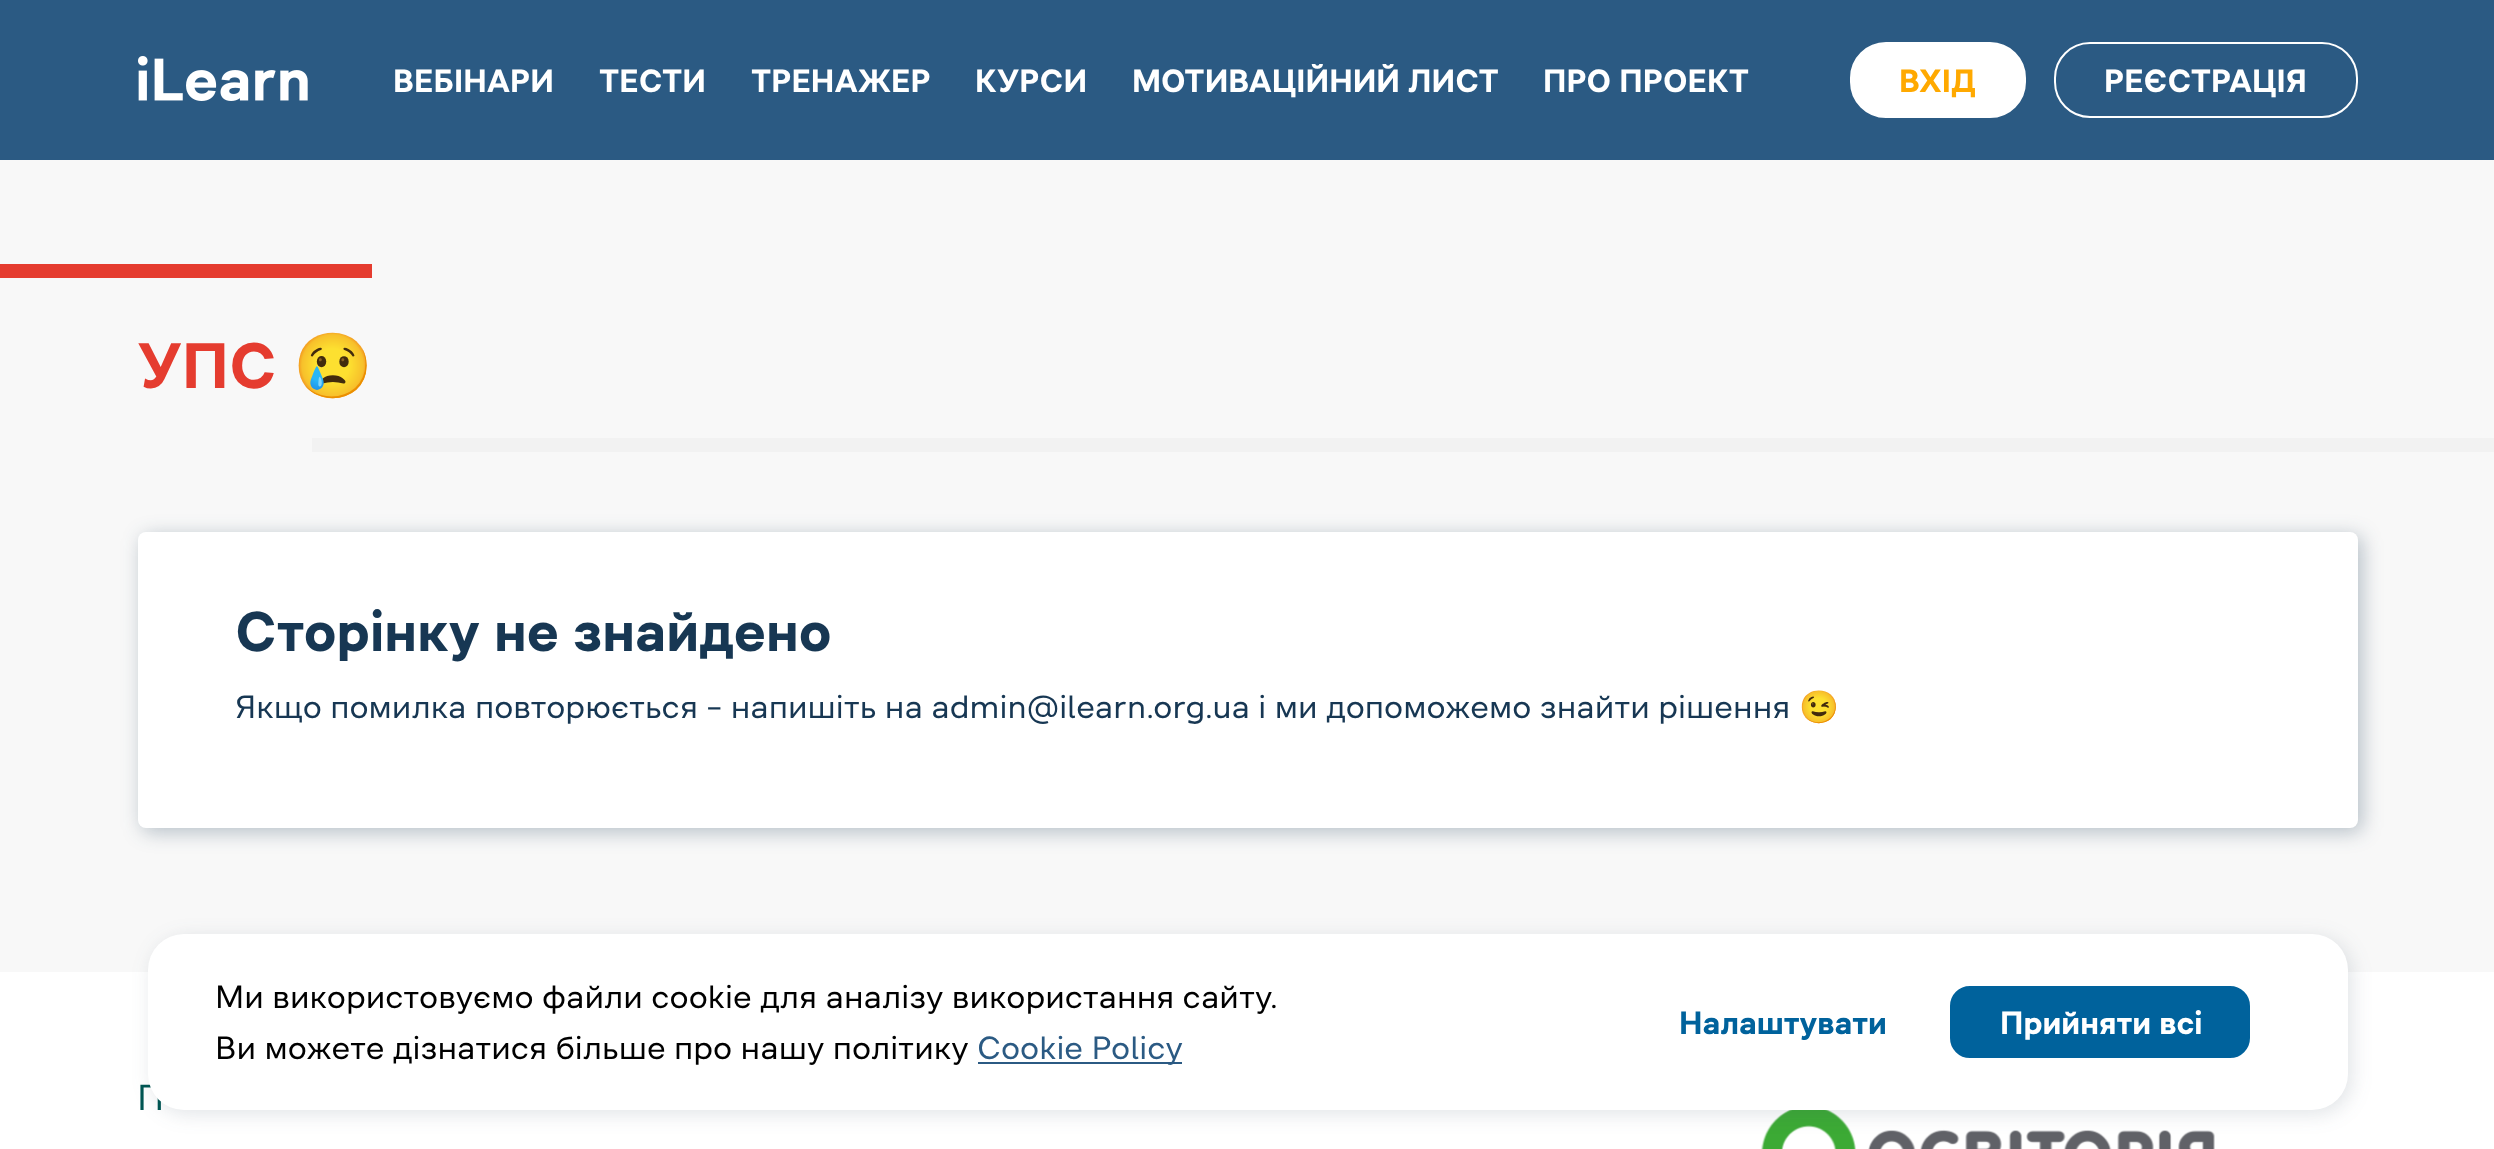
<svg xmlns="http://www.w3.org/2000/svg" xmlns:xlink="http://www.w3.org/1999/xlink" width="2494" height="1149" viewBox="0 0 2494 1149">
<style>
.cls-1{font:bold 32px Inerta;fill:#ffffff}
.cls-2{font:bold 32px Inerta;fill:#ffa900}
.cls-3{font:bold 64px Inerta;fill:#e53c2f}
.cls-4{font:bold 64px Noto Color Emoji;fill:#e53c2f}
.cls-5{font:bold 56px Inerta;fill:#173753}
.cls-6{font:32px Inerta;fill:#173753}
.cls-7{font:32px Noto Color Emoji;fill:#173753}
.cls-8{font:36px Inerta;fill:#005552}
.cls-9{font:32px Inerta;fill:#2b5a83}
.cls-10{font:32px Inerta;fill:#000000}
.cls-11{font:bold 32px Inerta;fill:#00629c}
</style>
<rect width="100%" height="100%" fill="#f8f8f8"/>
<rect fill="#2b5a83" x="0" y="0" width="2494" height="160"/>
<image xlink:href="image0.png" x="138" y="56" width="170" height="45"/>
<rect fill="#ffffff" stroke="#ffffff" stroke-width="2" x="1851" y="43" width="174" height="74" rx="35"/>
<rect fill="none" stroke="#ffffff" stroke-width="2" x="2055" y="43" width="302" height="74" rx="35"/>
<rect fill="#e53c2f" x="0" y="264" width="372" height="14"/>
<rect fill="#f2f2f2" x="312" y="438" width="2182" height="14"/>
<rect fill="#173753" fill-opacity="0.3" filter="blur(10px)" x="142" y="536" width="2220" height="296" rx="8"/>
<rect fill="#ffffff" x="138" y="532" width="2220" height="296" rx="8"/>
<rect fill="#ffffff" x="0" y="972" width="2494" height="177"/>
<image xlink:href="image1.png" x="1761" y="1110" width="454" height="39"/>
<rect fill="#334a5e" fill-opacity="0.15" filter="blur(10px)" x="152" y="938" width="2200" height="176" rx="36"/>
<text class="cls-1" x="393" y="92">ВЕБІНАРИ</text>
<text class="cls-1" x="599" y="92">ТЕСТИ</text>
<text class="cls-1" x="751" y="92">ТРЕНАЖЕР</text>
<text class="cls-1" x="975" y="92">КУРСИ</text>
<text class="cls-1" x="1132" y="92">МОТИВАЦІЙНИЙ ЛИСТ</text>
<text class="cls-1" x="1543" y="92">ПРО ПРОЕКТ</text>
<text class="cls-2" x="1899" y="92">ВХІД</text>
<text class="cls-1" x="2104" y="92">РЕЄСТРАЦІЯ</text>
<text class="cls-3" x="137" y="388">УПС</text>
<text class="cls-4" x="293" y="388">😢</text>
<text class="cls-5" x="235" y="651">Сторінку не знайдено</text>
<text class="cls-6" x="235" y="718">Якщо помилка повторюється – напишіть на admin@ilearn.org.ua і ми допоможемо знайти рішення</text>
<text class="cls-7" x="1799" y="718">😉</text>
<text class="cls-8" x="137" y="1110">П</text>
<rect fill="#ffffff" x="148" y="934" width="2200" height="176" rx="36"/>
<rect fill="#2b5a83" x="978" y="1062" width="204" height="2"/>
<text class="cls-9" x="977" y="1059">Cookie Policy</text>
<text class="cls-10" x="215" y="1059">Ви можете дізнатися більше про нашу політику</text>
<text class="cls-10" x="215" y="1008">Ми використовуємо файли cookie для аналізу використання сайту.</text>
<rect fill="#00629c" stroke="#00629c" stroke-width="2" x="1951" y="987" width="298" height="70" rx="19"/>
<text class="cls-1" x="2000" y="1034">Прийняти всі</text>
<text class="cls-11" x="1679" y="1034">Налаштувати</text>
</svg>
